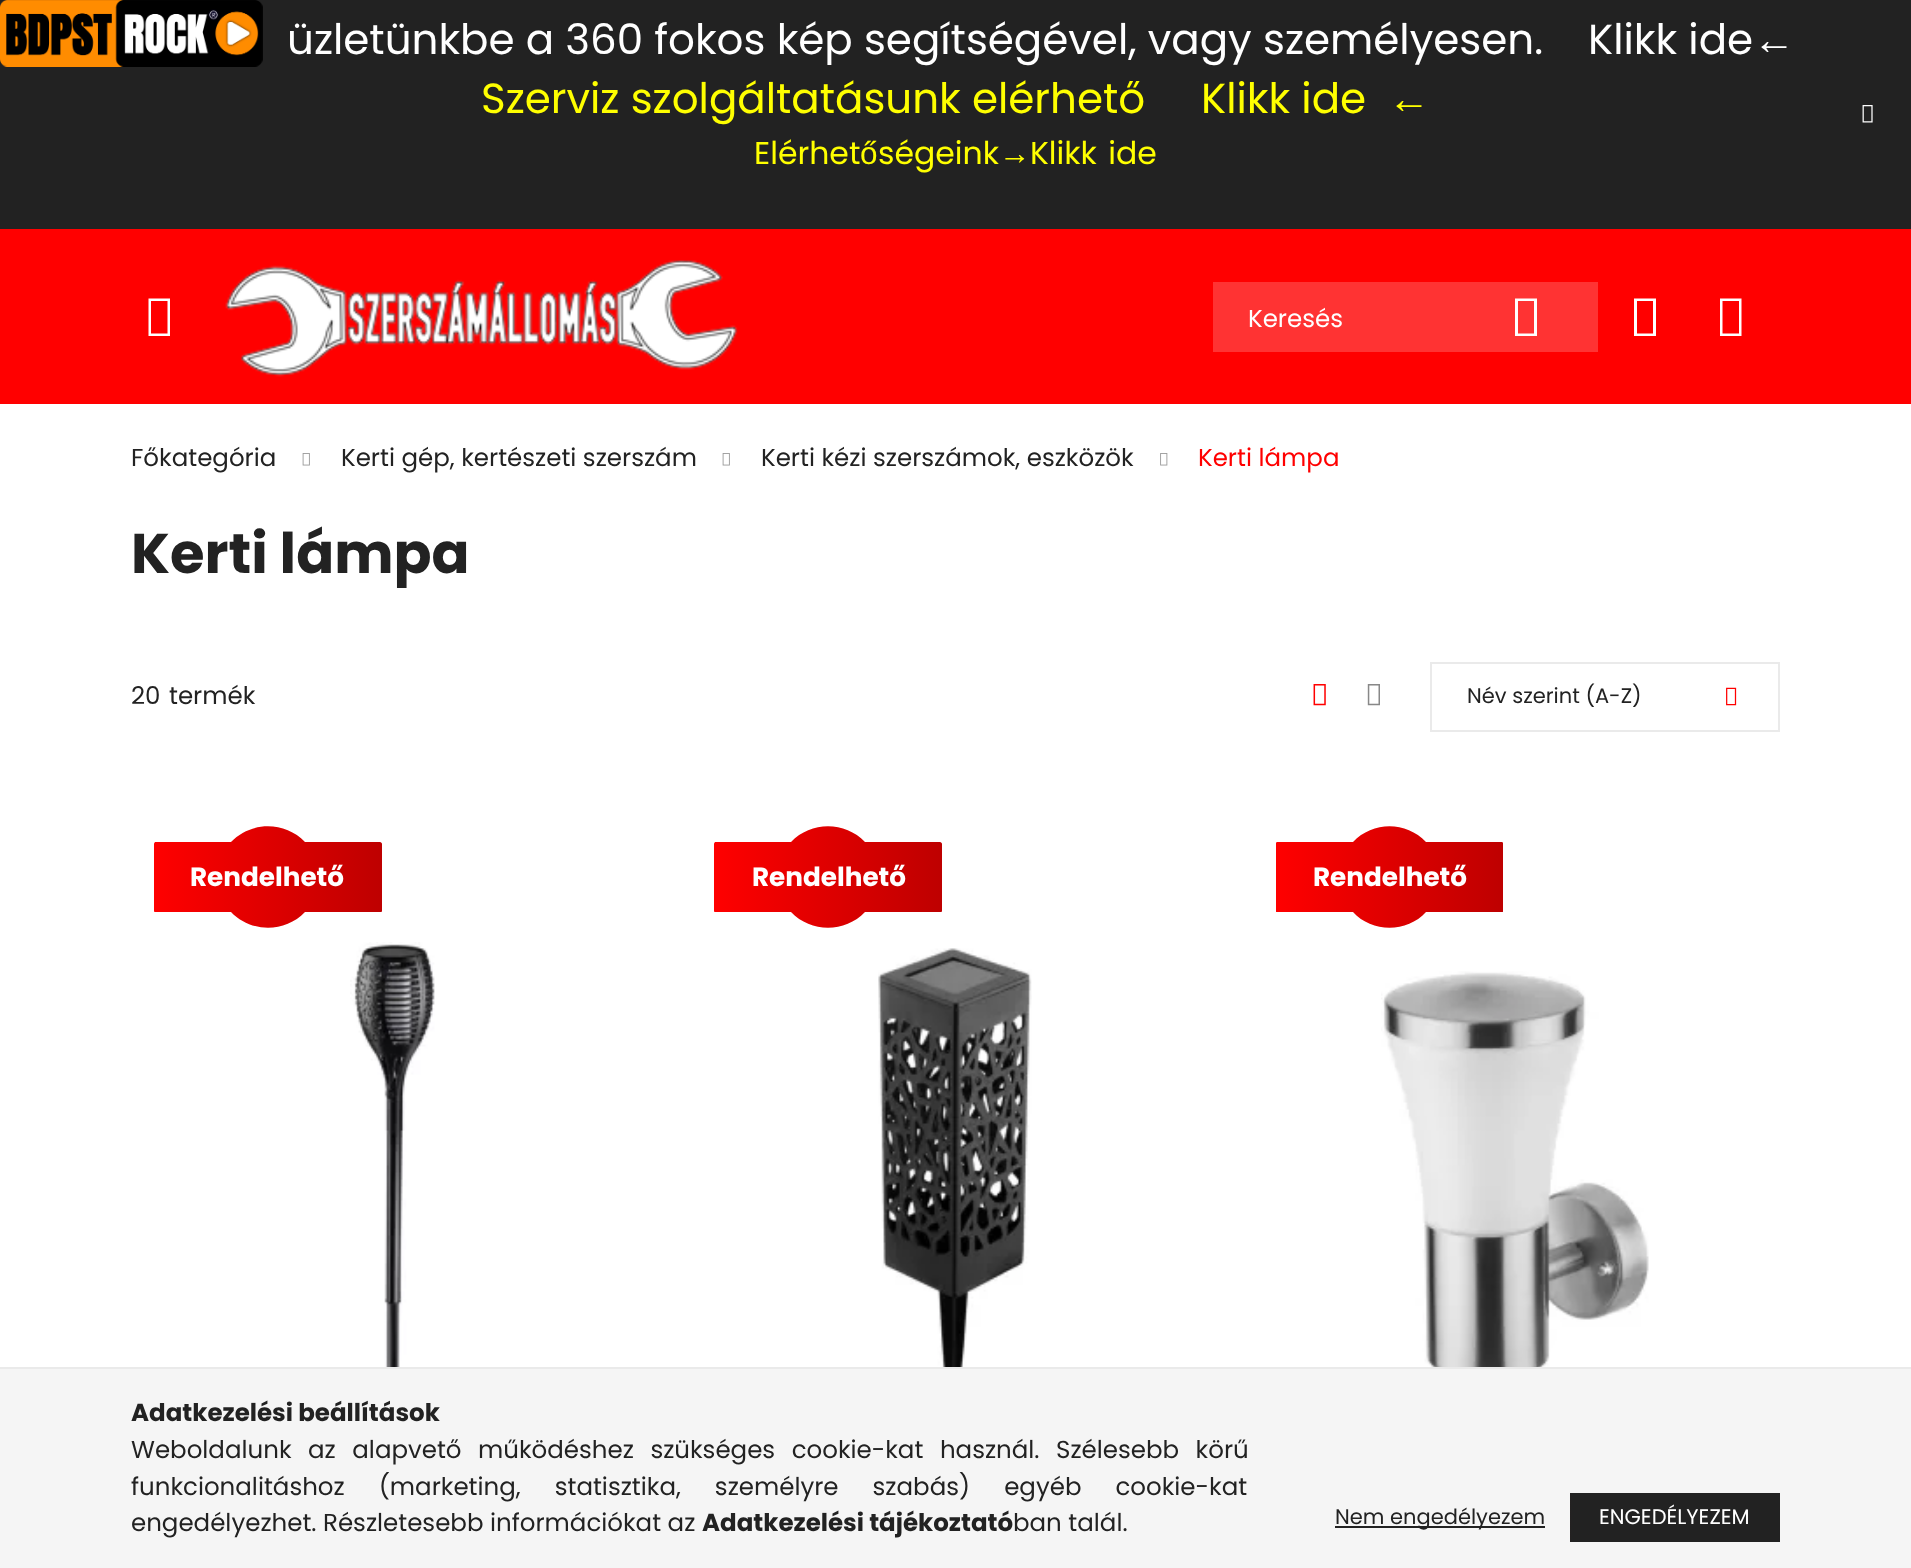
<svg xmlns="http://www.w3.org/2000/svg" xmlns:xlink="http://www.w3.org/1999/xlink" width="1911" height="1568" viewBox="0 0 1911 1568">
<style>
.cls-1{font:42px Poppins;fill:#ffffff}
.cls-2{font:42px Liberation Sans;fill:#ffffff}
.cls-3{font:42px Poppins;fill:#ffff00}
.cls-4{font:42px Liberation Sans;fill:#ffff00}
.cls-5{font:31.5px Poppins;fill:#ffff00}
.cls-6{font:31.5px Liberation Sans;fill:#ffff00}
.cls-7{font:24.5px Poppins;fill:#ffffff}
.cls-8{font:24.5px Poppins;fill:#222222}
.cls-9{font:24.5px Poppins;fill:#ff0000}
.cls-10{font:bold 56px Poppins;fill:#222222}
.cls-11{font:21px Poppins;fill:#222222}
.cls-12{font:bold 26.25px Poppins;fill:#ffffff}
.cls-13{font:bold 24.5px Poppins;fill:#222222}
.cls-14{font:21px Poppins;fill:#ffffff}
</style>
<defs>
<linearGradient id="g1" gradientUnits="userSpaceOnUse" x1="154" y1="826" x2="382" y2="826"><stop offset="0" stop-color="#ff0000"/><stop offset="1" stop-color="#be0000"/></linearGradient>
<linearGradient id="g2" gradientUnits="userSpaceOnUse" x1="714" y1="826" x2="942" y2="826"><stop offset="0" stop-color="#ff0000"/><stop offset="1" stop-color="#be0000"/></linearGradient>
<linearGradient id="g3" gradientUnits="userSpaceOnUse" x1="1276" y1="826" x2="1503" y2="826"><stop offset="0" stop-color="#ff0000"/><stop offset="1" stop-color="#be0000"/></linearGradient>
<linearGradient id="g4" gradientUnits="userSpaceOnUse" x1="1150" y1="1517" x2="1780" y2="1517"><stop offset="0" stop-color="#ff0000"/><stop offset="0.33" stop-color="#ff0000"/><stop offset="0.67" stop-color="#222222"/><stop offset="1" stop-color="#222222"/></linearGradient>
</defs>
<rect width="100%" height="100%" fill="#ffffff"/>
<rect fill="#222222" x="0" y="0" width="1911" height="229"/>
<image xlink:href="image0.png" x="0" y="0" width="263" height="67"/>
<image xlink:href="image1.png" x="1862" y="105" width="11" height="18"/>
<rect fill="#ff0000" x="0" y="229" width="1911" height="175"/>
<path fill="#ffffff" d="M148.5 336V298.5H170V336ZM151 333.5H167.5V301H151Z"/>
<image xlink:href="image2.png" x="225" y="260" width="513" height="117"/>
<rect fill="#ff3333" x="1213" y="282" width="385" height="70"/>
<path fill="#ffffff" d="M1515 336V298.5H1537V336ZM1518 333.5H1534V301H1518Z"/>
<path fill="#ffffff" d="M1634 336V298.5H1656V336ZM1637 333.5H1653V301H1637Z"/>
<path fill="#ffffff" d="M1720 336V298.5H1741.5V336ZM1722.5 333.5H1739V301H1722.5Z"/>
<image xlink:href="image3.png" x="302" y="453" width="8" height="13"/>
<image xlink:href="image3.png" x="722" y="453" width="8" height="13"/>
<image xlink:href="image4.png" x="1160" y="453" width="8" height="13"/>
<image xlink:href="image5.png" x="1313" y="684" width="13" height="22"/>
<image xlink:href="image6.png" x="1367" y="684" width="13" height="22"/>
<rect fill="none" stroke="#eaeaea" stroke-width="2" x="1431" y="663" width="348" height="68"/>
<image xlink:href="image7.png" x="1726" y="687" width="11" height="19"/>
<path fill="url(#g1)" d="M305 842H380C381 842 382 843 382 844V911C382 912 381 912 380 912H305C285 933 251 933 231 912H155C155 912 154 912 154 911V844C154 843 155 842 155 842H231C251 821 285 821 305 842Z"/>
<image xlink:href="image8.png" x="350" y="942" width="85" height="425"/>
<path fill="url(#g2)" d="M865 842H940C941 842 942 843 942 844V911C942 912 941 912 940 912H865C845 933 811 933 791 912H715C715 912 714 912 714 911V844C714 843 715 842 715 842H791C811 821 845 821 865 842Z"/>
<image xlink:href="image9.png" x="878" y="948" width="154" height="419"/>
<path fill="url(#g3)" d="M1426 842H1502C1503 842 1503 843 1503 844V911C1503 912 1503 912 1502 912H1426C1407 933 1372 933 1353 912H1277C1276 912 1276 912 1276 911V844C1276 843 1276 842 1277 842H1353C1373 821 1406 821 1426 842Z"/>
<image xlink:href="image10.png" x="1381" y="971" width="268" height="396"/>
<rect fill="#f5f5f5" x="0" y="1369" width="1911" height="199"/>
<rect fill="#eaeaea" x="0" y="1367" width="1911" height="2"/>
<rect fill="#222222" x="1335" y="1526" width="210" height="2"/>
<rect fill="url(#g4)" x="1570" y="1493" width="210" height="49"/>
<text class="cls-1" x="287" y="54">üzletünkbe a 360 fokos kép segítségével, vagy személyesen.</text>
<text class="cls-1" x="1588" y="54">Klikk ide</text>
<text class="cls-2" x="1753" y="54">←</text>
<text class="cls-3" x="481" y="113">Szerviz szolgáltatásunk elérhető</text>
<text class="cls-3" x="1201" y="113">Klikk ide</text>
<text class="cls-4" x="1388" y="113">←</text>
<text class="cls-5" x="754" y="164">Elérhet</text>
<text class="cls-6" x="860" y="164">ő</text>
<text class="cls-5" x="878" y="164">ségeink</text>
<text class="cls-6" x="999" y="164">→</text>
<text class="cls-5" x="1030" y="164" word-spacing="3">Klikk ide</text>
<text class="cls-7" x="1248" y="327">Keresés</text>
<text class="cls-8" x="131" y="466">Főkategória</text>
<text class="cls-8" x="341" y="466">Kerti gép, kertészeti szerszám</text>
<text class="cls-8" x="761" y="466">Kerti kézi szerszámok, eszközök</text>
<text class="cls-9" x="1198" y="466">Kerti lámpa</text>
<text class="cls-10" x="131" y="573">Kerti lámpa</text>
<text class="cls-8" x="131" y="704">20</text>
<text class="cls-8" x="169" y="704">termék</text>
<text class="cls-11" x="1467" y="703">Név szerint (A-Z)</text>
<text class="cls-12" x="190" y="886">Rendelhető</text>
<text class="cls-12" x="752" y="886">Rendelhető</text>
<text class="cls-12" x="1313" y="886">Rendelhető</text>
<text class="cls-13" x="131" y="1421">Adatkezelési beállítások</text>
<text class="cls-8"><tspan x="131" y="1458" word-spacing="10">Weboldalunk az alapvető működéshez szükséges cookie-kat használ. Szélesebb körű</tspan><tspan x="131" y="1495" word-spacing="27.5">funkcionalitáshoz (marketing, statisztika, személyre szabás) egyéb cookie-kat</tspan><tspan x="131" y="1531">engedélyezhet. Részletesebb információkat az</tspan></text>
<text class="cls-13" x="702" y="1531">Adatkezelési tájékoztató</text>
<text class="cls-8" x="1013" y="1531">ban talál.</text>
<text class="cls-11" x="1335" y="1524">Nem engedélyezem</text>
<text class="cls-14" x="1599" y="1524">ENGEDÉLYEZEM</text>
</svg>
